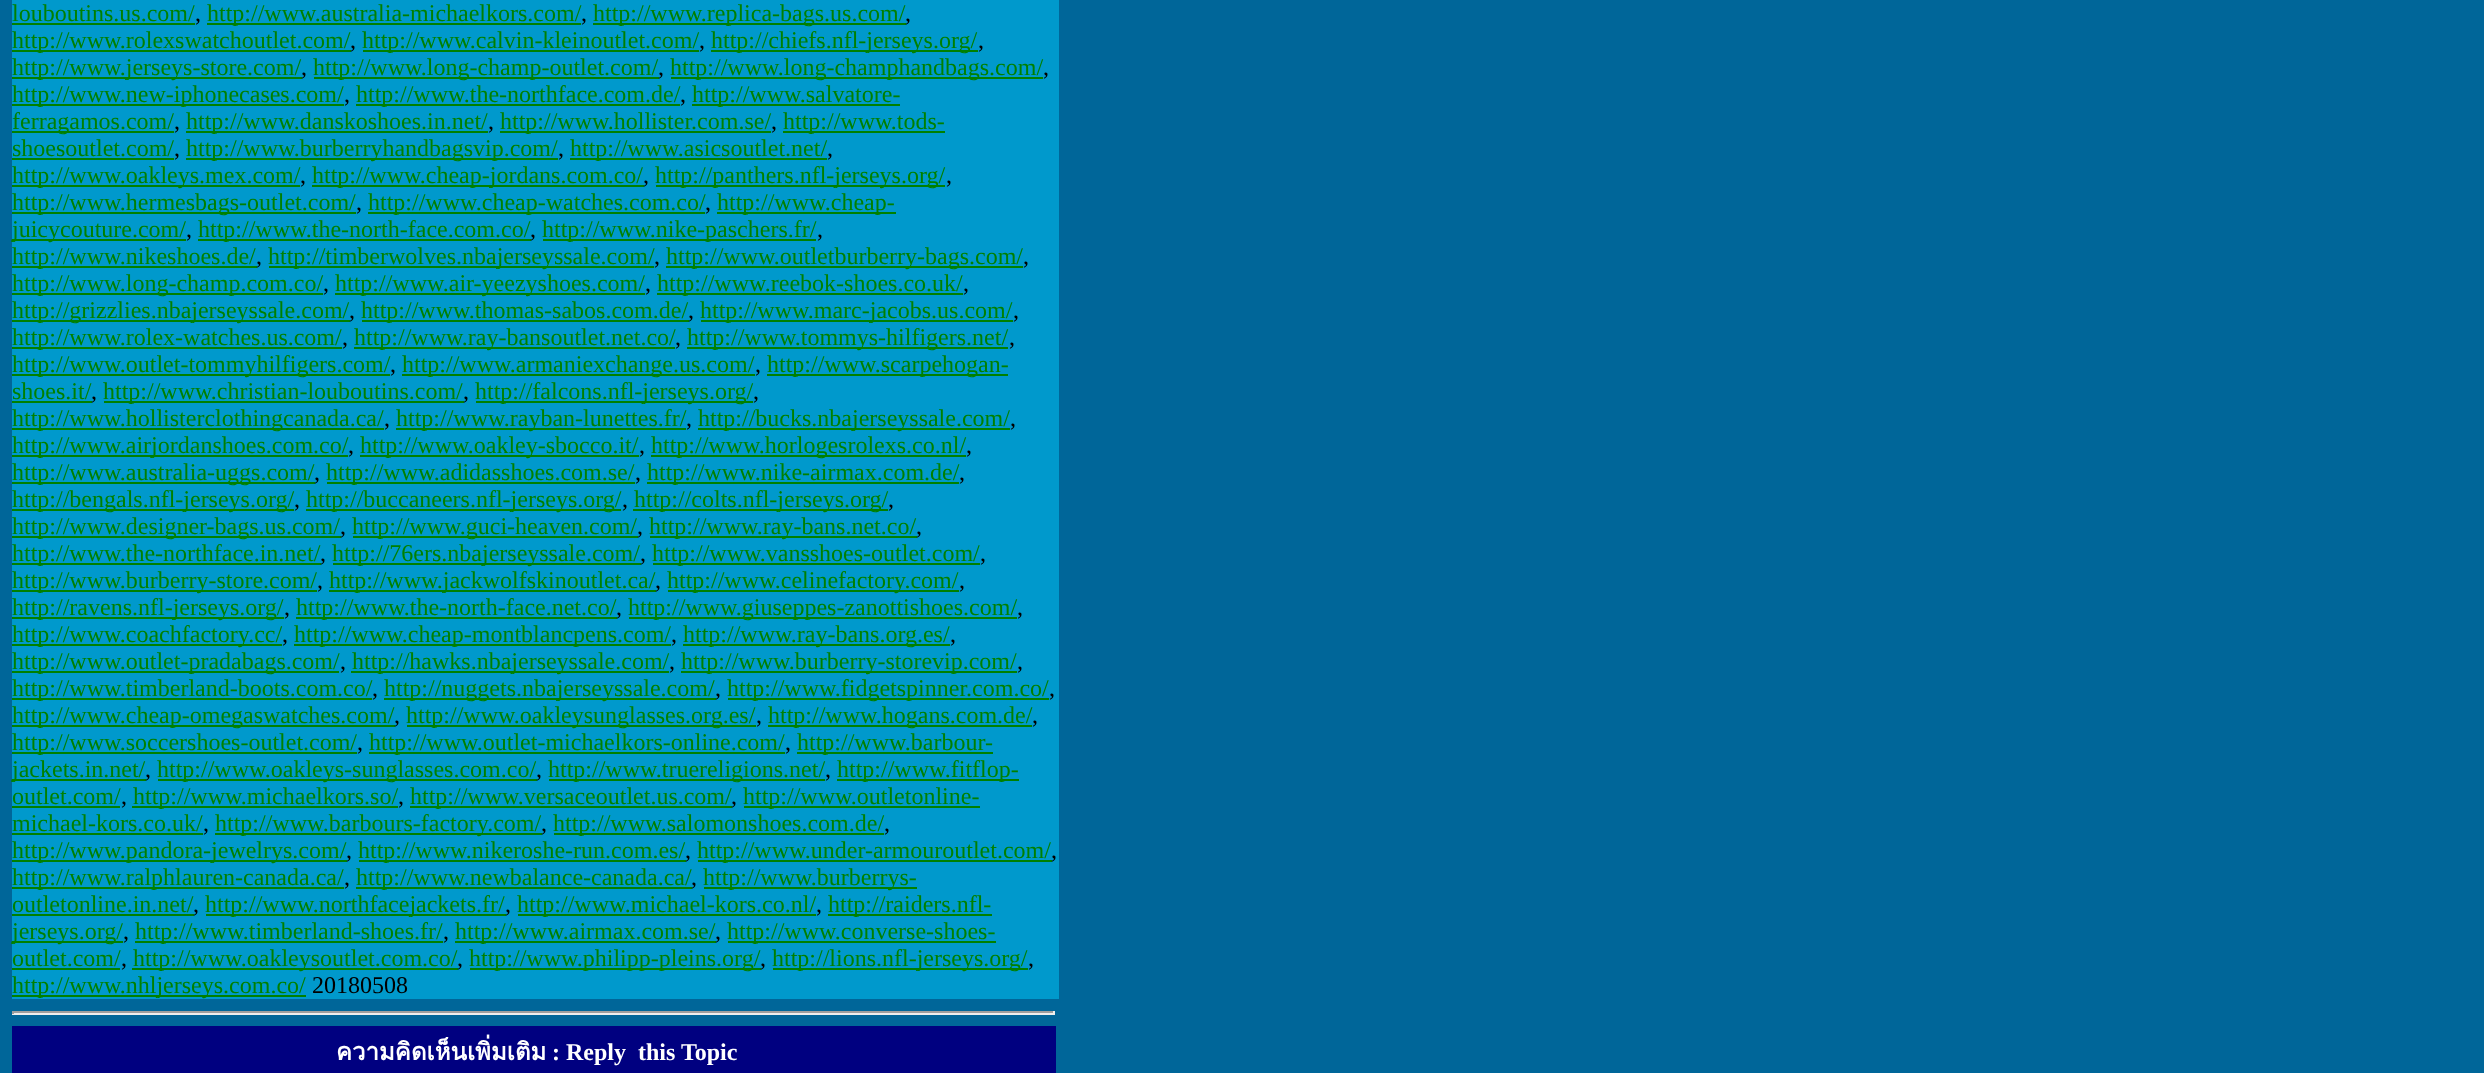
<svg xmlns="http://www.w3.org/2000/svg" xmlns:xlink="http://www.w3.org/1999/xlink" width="2484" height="1073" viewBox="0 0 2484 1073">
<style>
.cls-1{font:24px Liberation Serif;fill:#008000}
.cls-2{font:24px Liberation Serif;fill:#000000}
.cls-3{font:bold 24px Loma;fill:#ffffff}
.cls-4{font:bold 24px Liberation Serif;fill:#ffffff}
</style>
<rect width="100%" height="100%" fill="#006699"/>
<rect fill="#0099cc" x="12" y="0" width="1047" height="999"/>
<rect fill="#008000" x="12" y="23" width="183" height="2"/>
<rect fill="#008000" x="207" y="23" width="374" height="2"/>
<rect fill="#008000" x="593" y="23" width="313" height="2"/>
<rect fill="#008000" x="12" y="50" width="339" height="2"/>
<rect fill="#008000" x="363" y="50" width="336" height="2"/>
<rect fill="#008000" x="711" y="50" width="267" height="2"/>
<rect fill="#008000" x="12" y="77" width="290" height="2"/>
<rect fill="#008000" x="314" y="77" width="345" height="2"/>
<rect fill="#008000" x="671" y="77" width="372" height="2"/>
<rect fill="#008000" x="12" y="104" width="332" height="2"/>
<rect fill="#008000" x="356" y="104" width="324" height="2"/>
<rect fill="#008000" x="692" y="104" width="208" height="2"/>
<rect fill="#008000" x="12" y="131" width="162" height="2"/>
<rect fill="#008000" x="186" y="131" width="302" height="2"/>
<rect fill="#008000" x="500" y="131" width="271" height="2"/>
<rect fill="#008000" x="783" y="131" width="162" height="2"/>
<rect fill="#008000" x="12" y="158" width="162" height="2"/>
<rect fill="#008000" x="186" y="158" width="372" height="2"/>
<rect fill="#008000" x="570" y="158" width="257" height="2"/>
<rect fill="#008000" x="12" y="185" width="288" height="2"/>
<rect fill="#008000" x="312" y="185" width="332" height="2"/>
<rect fill="#008000" x="656" y="185" width="289" height="2"/>
<rect fill="#008000" x="12" y="212" width="344" height="2"/>
<rect fill="#008000" x="368" y="212" width="337" height="2"/>
<rect fill="#008000" x="717" y="212" width="179" height="2"/>
<rect fill="#008000" x="12" y="239" width="174" height="2"/>
<rect fill="#008000" x="198" y="239" width="333" height="2"/>
<rect fill="#008000" x="543" y="239" width="273" height="2"/>
<rect fill="#008000" x="12" y="266" width="245" height="2"/>
<rect fill="#008000" x="269" y="266" width="385" height="2"/>
<rect fill="#008000" x="666" y="266" width="357" height="2"/>
<rect fill="#008000" x="12" y="293" width="311" height="2"/>
<rect fill="#008000" x="335" y="293" width="310" height="2"/>
<rect fill="#008000" x="657" y="293" width="306" height="2"/>
<rect fill="#008000" x="12" y="320" width="338" height="2"/>
<rect fill="#008000" x="362" y="320" width="327" height="2"/>
<rect fill="#008000" x="701" y="320" width="312" height="2"/>
<rect fill="#008000" x="12" y="347" width="330" height="2"/>
<rect fill="#008000" x="354" y="347" width="321" height="2"/>
<rect fill="#008000" x="687" y="347" width="321" height="2"/>
<rect fill="#008000" x="12" y="374" width="378" height="2"/>
<rect fill="#008000" x="402" y="374" width="353" height="2"/>
<rect fill="#008000" x="767" y="374" width="241" height="2"/>
<rect fill="#008000" x="12" y="401" width="80" height="2"/>
<rect fill="#008000" x="104" y="401" width="360" height="2"/>
<rect fill="#008000" x="476" y="401" width="277" height="2"/>
<rect fill="#008000" x="12" y="428" width="372" height="2"/>
<rect fill="#008000" x="396" y="428" width="290" height="2"/>
<rect fill="#008000" x="698" y="428" width="312" height="2"/>
<rect fill="#008000" x="12" y="455" width="336" height="2"/>
<rect fill="#008000" x="360" y="455" width="279" height="2"/>
<rect fill="#008000" x="651" y="455" width="315" height="2"/>
<rect fill="#008000" x="12" y="482" width="303" height="2"/>
<rect fill="#008000" x="327" y="482" width="308" height="2"/>
<rect fill="#008000" x="647" y="482" width="312" height="2"/>
<rect fill="#008000" x="12" y="509" width="282" height="2"/>
<rect fill="#008000" x="306" y="509" width="315" height="2"/>
<rect fill="#008000" x="633" y="509" width="255" height="2"/>
<rect fill="#008000" x="12" y="536" width="329" height="2"/>
<rect fill="#008000" x="353" y="536" width="285" height="2"/>
<rect fill="#008000" x="650" y="536" width="267" height="2"/>
<rect fill="#008000" x="12" y="563" width="309" height="2"/>
<rect fill="#008000" x="333" y="563" width="308" height="2"/>
<rect fill="#008000" x="653" y="563" width="327" height="2"/>
<rect fill="#008000" x="12" y="590" width="305" height="2"/>
<rect fill="#008000" x="329" y="590" width="327" height="2"/>
<rect fill="#008000" x="668" y="590" width="291" height="2"/>
<rect fill="#008000" x="12" y="617" width="272" height="2"/>
<rect fill="#008000" x="296" y="617" width="321" height="2"/>
<rect fill="#008000" x="629" y="617" width="388" height="2"/>
<rect fill="#008000" x="12" y="644" width="270" height="2"/>
<rect fill="#008000" x="294" y="644" width="377" height="2"/>
<rect fill="#008000" x="683" y="644" width="267" height="2"/>
<rect fill="#008000" x="12" y="671" width="327" height="2"/>
<rect fill="#008000" x="351" y="671" width="318" height="2"/>
<rect fill="#008000" x="681" y="671" width="336" height="2"/>
<rect fill="#008000" x="12" y="698" width="360" height="2"/>
<rect fill="#008000" x="384" y="698" width="332" height="2"/>
<rect fill="#008000" x="728" y="698" width="321" height="2"/>
<rect fill="#008000" x="12" y="725" width="383" height="2"/>
<rect fill="#008000" x="407" y="725" width="349" height="2"/>
<rect fill="#008000" x="768" y="725" width="264" height="2"/>
<rect fill="#008000" x="12" y="752" width="345" height="2"/>
<rect fill="#008000" x="369" y="752" width="416" height="2"/>
<rect fill="#008000" x="797" y="752" width="196" height="2"/>
<rect fill="#008000" x="12" y="779" width="134" height="2"/>
<rect fill="#008000" x="158" y="779" width="379" height="2"/>
<rect fill="#008000" x="549" y="779" width="276" height="2"/>
<rect fill="#008000" x="837" y="779" width="182" height="2"/>
<rect fill="#008000" x="12" y="806" width="108" height="2"/>
<rect fill="#008000" x="132" y="806" width="266" height="2"/>
<rect fill="#008000" x="410" y="806" width="322" height="2"/>
<rect fill="#008000" x="744" y="806" width="236" height="2"/>
<rect fill="#008000" x="12" y="833" width="191" height="2"/>
<rect fill="#008000" x="215" y="833" width="327" height="2"/>
<rect fill="#008000" x="554" y="833" width="330" height="2"/>
<rect fill="#008000" x="12" y="860" width="335" height="2"/>
<rect fill="#008000" x="359" y="860" width="327" height="2"/>
<rect fill="#008000" x="698" y="860" width="354" height="2"/>
<rect fill="#008000" x="12" y="887" width="332" height="2"/>
<rect fill="#008000" x="356" y="887" width="336" height="2"/>
<rect fill="#008000" x="704" y="887" width="213" height="2"/>
<rect fill="#008000" x="12" y="914" width="182" height="2"/>
<rect fill="#008000" x="206" y="914" width="300" height="2"/>
<rect fill="#008000" x="518" y="914" width="298" height="2"/>
<rect fill="#008000" x="828" y="914" width="164" height="2"/>
<rect fill="#008000" x="12" y="941" width="111" height="2"/>
<rect fill="#008000" x="135" y="941" width="308" height="2"/>
<rect fill="#008000" x="455" y="941" width="261" height="2"/>
<rect fill="#008000" x="728" y="941" width="268" height="2"/>
<rect fill="#008000" x="12" y="968" width="108" height="2"/>
<rect fill="#008000" x="132" y="968" width="326" height="2"/>
<rect fill="#008000" x="470" y="968" width="291" height="2"/>
<rect fill="#008000" x="773" y="968" width="255" height="2"/>
<rect fill="#008000" x="12" y="995" width="294" height="2"/>
<rect fill="#9f9f9f" x="12" y="1011" width="1043" height="2"/>
<rect fill="#eeeeee" x="1053" y="1011" width="2" height="3"/>
<rect fill="#eeeeee" x="12" y="1013" width="1043" height="2"/>
<rect fill="#9f9f9f" x="12" y="1011" width="2" height="3"/>
<rect fill="#000080" x="12" y="1026" width="1044" height="47"/>
<text class="cls-1" x="12" y="21">louboutins.us.com/</text>
<text class="cls-2" x="195" y="21">,</text>
<text class="cls-1" x="207" y="21">http://www.australia-michaelkors.com/</text>
<text class="cls-2" x="581" y="21">,</text>
<text class="cls-1" x="593" y="21">http://www.replica-bags.us.com/</text>
<text class="cls-2" x="905" y="21">,</text>
<text class="cls-1" x="12" y="48">http://www.rolexswatchoutlet.com/</text>
<text class="cls-2" x="350" y="48">,</text>
<text class="cls-1" x="362" y="48">http://www.calvin-kleinoutlet.com/</text>
<text class="cls-2" x="699" y="48">,</text>
<text class="cls-1" x="711" y="48">http://chiefs.nfl-jerseys.org/</text>
<text class="cls-2" x="978" y="48">,</text>
<text class="cls-1" x="12" y="75">http://www.jerseys-store.com/</text>
<text class="cls-2" x="301" y="75">,</text>
<text class="cls-1" x="313" y="75">http://www.long-champ-outlet.com/</text>
<text class="cls-2" x="658" y="75">,</text>
<text class="cls-1" x="670" y="75">http://www.long-champhandbags.com/</text>
<text class="cls-2" x="1043" y="75">,</text>
<text class="cls-1" x="12" y="102">http://www.new-iphonecases.com/</text>
<text class="cls-2" x="344" y="102">,</text>
<text class="cls-1" x="356" y="102">http://www.the-northface.com.de/</text>
<text class="cls-2" x="680" y="102">,</text>
<text class="cls-1" x="692" y="102">http://www.salvatore-</text>
<text class="cls-1" x="12" y="129">ferragamos.com/</text>
<text class="cls-2" x="174" y="129">,</text>
<text class="cls-1" x="186" y="129">http://www.danskoshoes.in.net/</text>
<text class="cls-2" x="488" y="129">,</text>
<text class="cls-1" x="500" y="129">http://www.hollister.com.se/</text>
<text class="cls-2" x="771" y="129">,</text>
<text class="cls-1" x="783" y="129">http://www.tods-</text>
<text class="cls-1" x="12" y="156">shoesoutlet.com/</text>
<text class="cls-2" x="174" y="156">,</text>
<text class="cls-1" x="186" y="156">http://www.burberryhandbagsvip.com/</text>
<text class="cls-2" x="558" y="156">,</text>
<text class="cls-1" x="570" y="156">http://www.asicsoutlet.net/</text>
<text class="cls-2" x="827" y="156">,</text>
<text class="cls-1" x="12" y="183">http://www.oakleys.mex.com/</text>
<text class="cls-2" x="300" y="183">,</text>
<text class="cls-1" x="312" y="183">http://www.cheap-jordans.com.co/</text>
<text class="cls-2" x="643" y="183">,</text>
<text class="cls-1" x="655" y="183">http://panthers.nfl-jerseys.org/</text>
<text class="cls-2" x="946" y="183">,</text>
<text class="cls-1" x="12" y="210">http://www.hermesbags-outlet.com/</text>
<text class="cls-2" x="356" y="210">,</text>
<text class="cls-1" x="368" y="210">http://www.cheap-watches.com.co/</text>
<text class="cls-2" x="705" y="210">,</text>
<text class="cls-1" x="717" y="210">http://www.cheap-</text>
<text class="cls-1" x="12" y="237">juicycouture.com/</text>
<text class="cls-2" x="186" y="237">,</text>
<text class="cls-1" x="198" y="237">http://www.the-north-face.com.co/</text>
<text class="cls-2" x="530" y="237">,</text>
<text class="cls-1" x="542" y="237">http://www.nike-paschers.fr/</text>
<text class="cls-2" x="817" y="237">,</text>
<text class="cls-1" x="12" y="264">http://www.nikeshoes.de/</text>
<text class="cls-2" x="256" y="264">,</text>
<text class="cls-1" x="268" y="264">http://timberwolves.nbajerseyssale.com/</text>
<text class="cls-2" x="654" y="264">,</text>
<text class="cls-1" x="666" y="264">http://www.outletburberry-bags.com/</text>
<text class="cls-2" x="1023" y="264">,</text>
<text class="cls-1" x="12" y="291">http://www.long-champ.com.co/</text>
<text class="cls-2" x="323" y="291">,</text>
<text class="cls-1" x="335" y="291">http://www.air-yeezyshoes.com/</text>
<text class="cls-2" x="645" y="291">,</text>
<text class="cls-1" x="657" y="291">http://www.reebok-shoes.co.uk/</text>
<text class="cls-2" x="963" y="291">,</text>
<text class="cls-1" x="12" y="318">http://grizzlies.nbajerseyssale.com/</text>
<text class="cls-2" x="349" y="318">,</text>
<text class="cls-1" x="361" y="318">http://www.thomas-sabos.com.de/</text>
<text class="cls-2" x="688" y="318">,</text>
<text class="cls-1" x="700" y="318">http://www.marc-jacobs.us.com/</text>
<text class="cls-2" x="1013" y="318">,</text>
<text class="cls-1" x="12" y="345">http://www.rolex-watches.us.com/</text>
<text class="cls-2" x="342" y="345">,</text>
<text class="cls-1" x="354" y="345">http://www.ray-bansoutlet.net.co/</text>
<text class="cls-2" x="675" y="345">,</text>
<text class="cls-1" x="687" y="345">http://www.tommys-hilfigers.net/</text>
<text class="cls-2" x="1009" y="345">,</text>
<text class="cls-1" x="12" y="372">http://www.outlet-tommyhilfigers.com/</text>
<text class="cls-2" x="390" y="372">,</text>
<text class="cls-1" x="402" y="372">http://www.armaniexchange.us.com/</text>
<text class="cls-2" x="755" y="372">,</text>
<text class="cls-1" x="767" y="372">http://www.scarpehogan-</text>
<text class="cls-1" x="12" y="399">shoes.it/</text>
<text class="cls-2" x="91" y="399">,</text>
<text class="cls-1" x="103" y="399">http://www.christian-louboutins.com/</text>
<text class="cls-2" x="463" y="399">,</text>
<text class="cls-1" x="475" y="399">http://falcons.nfl-jerseys.org/</text>
<text class="cls-2" x="753" y="399">,</text>
<text class="cls-1" x="12" y="426">http://www.hollisterclothingcanada.ca/</text>
<text class="cls-2" x="384" y="426">,</text>
<text class="cls-1" x="396" y="426">http://www.rayban-lunettes.fr/</text>
<text class="cls-2" x="686" y="426">,</text>
<text class="cls-1" x="698" y="426">http://bucks.nbajerseyssale.com/</text>
<text class="cls-2" x="1010" y="426">,</text>
<text class="cls-1" x="12" y="453">http://www.airjordanshoes.com.co/</text>
<text class="cls-2" x="348" y="453">,</text>
<text class="cls-1" x="360" y="453">http://www.oakley-sbocco.it/</text>
<text class="cls-2" x="639" y="453">,</text>
<text class="cls-1" x="651" y="453">http://www.horlogesrolexs.co.nl/</text>
<text class="cls-2" x="966" y="453">,</text>
<text class="cls-1" x="12" y="480">http://www.australia-uggs.com/</text>
<text class="cls-2" x="314" y="480">,</text>
<text class="cls-1" x="326" y="480">http://www.adidasshoes.com.se/</text>
<text class="cls-2" x="635" y="480">,</text>
<text class="cls-1" x="647" y="480">http://www.nike-airmax.com.de/</text>
<text class="cls-2" x="959" y="480">,</text>
<text class="cls-1" x="12" y="507">http://bengals.nfl-jerseys.org/</text>
<text class="cls-2" x="294" y="507">,</text>
<text class="cls-1" x="306" y="507">http://buccaneers.nfl-jerseys.org/</text>
<text class="cls-2" x="622" y="507">,</text>
<text class="cls-1" x="634" y="507">http://colts.nfl-jerseys.org/</text>
<text class="cls-2" x="888" y="507">,</text>
<text class="cls-1" x="12" y="534">http://www.designer-bags.us.com/</text>
<text class="cls-2" x="340" y="534">,</text>
<text class="cls-1" x="352" y="534">http://www.guci-heaven.com/</text>
<text class="cls-2" x="637" y="534">,</text>
<text class="cls-1" x="649" y="534">http://www.ray-bans.net.co/</text>
<text class="cls-2" x="916" y="534">,</text>
<text class="cls-1" x="12" y="561">http://www.the-northface.in.net/</text>
<text class="cls-2" x="320" y="561">,</text>
<text class="cls-1" x="332" y="561">http://76ers.nbajerseyssale.com/</text>
<text class="cls-2" x="640" y="561">,</text>
<text class="cls-1" x="652" y="561">http://www.vansshoes-outlet.com/</text>
<text class="cls-2" x="980" y="561">,</text>
<text class="cls-1" x="12" y="588">http://www.burberry-store.com/</text>
<text class="cls-2" x="317" y="588">,</text>
<text class="cls-1" x="329" y="588">http://www.jackwolfskinoutlet.ca/</text>
<text class="cls-2" x="655" y="588">,</text>
<text class="cls-1" x="667" y="588">http://www.celinefactory.com/</text>
<text class="cls-2" x="959" y="588">,</text>
<text class="cls-1" x="12" y="615">http://ravens.nfl-jerseys.org/</text>
<text class="cls-2" x="284" y="615">,</text>
<text class="cls-1" x="296" y="615">http://www.the-north-face.net.co/</text>
<text class="cls-2" x="616" y="615">,</text>
<text class="cls-1" x="628" y="615">http://www.giuseppes-zanottishoes.com/</text>
<text class="cls-2" x="1017" y="615">,</text>
<text class="cls-1" x="12" y="642">http://www.coachfactory.cc/</text>
<text class="cls-2" x="282" y="642">,</text>
<text class="cls-1" x="294" y="642">http://www.cheap-montblancpens.com/</text>
<text class="cls-2" x="671" y="642">,</text>
<text class="cls-1" x="683" y="642">http://www.ray-bans.org.es/</text>
<text class="cls-2" x="950" y="642">,</text>
<text class="cls-1" x="12" y="669">http://www.outlet-pradabags.com/</text>
<text class="cls-2" x="340" y="669">,</text>
<text class="cls-1" x="352" y="669">http://hawks.nbajerseyssale.com/</text>
<text class="cls-2" x="669" y="669">,</text>
<text class="cls-1" x="681" y="669">http://www.burberry-storevip.com/</text>
<text class="cls-2" x="1017" y="669">,</text>
<text class="cls-1" x="12" y="696">http://www.timberland-boots.com.co/</text>
<text class="cls-2" x="372" y="696">,</text>
<text class="cls-1" x="384" y="696">http://nuggets.nbajerseyssale.com/</text>
<text class="cls-2" x="715" y="696">,</text>
<text class="cls-1" x="727" y="696">http://www.fidgetspinner.com.co/</text>
<text class="cls-2" x="1049" y="696">,</text>
<text class="cls-1" x="12" y="723">http://www.cheap-omegaswatches.com/</text>
<text class="cls-2" x="394" y="723">,</text>
<text class="cls-1" x="406" y="723">http://www.oakleysunglasses.org.es/</text>
<text class="cls-2" x="756" y="723">,</text>
<text class="cls-1" x="768" y="723">http://www.hogans.com.de/</text>
<text class="cls-2" x="1032" y="723">,</text>
<text class="cls-1" x="12" y="750">http://www.soccershoes-outlet.com/</text>
<text class="cls-2" x="357" y="750">,</text>
<text class="cls-1" x="369" y="750">http://www.outlet-michaelkors-online.com/</text>
<text class="cls-2" x="785" y="750">,</text>
<text class="cls-1" x="797" y="750">http://www.barbour-</text>
<text class="cls-1" x="12" y="777">jackets.in.net/</text>
<text class="cls-2" x="145" y="777">,</text>
<text class="cls-1" x="157" y="777">http://www.oakleys-sunglasses.com.co/</text>
<text class="cls-2" x="536" y="777">,</text>
<text class="cls-1" x="548" y="777">http://www.truereligions.net/</text>
<text class="cls-2" x="825" y="777">,</text>
<text class="cls-1" x="837" y="777">http://www.fitflop-</text>
<text class="cls-1" x="12" y="804">outlet.com/</text>
<text class="cls-2" x="121" y="804">,</text>
<text class="cls-1" x="133" y="804">http://www.michaelkors.so/</text>
<text class="cls-2" x="398" y="804">,</text>
<text class="cls-1" x="410" y="804">http://www.versaceoutlet.us.com/</text>
<text class="cls-2" x="731" y="804">,</text>
<text class="cls-1" x="743" y="804">http://www.outletonline-</text>
<text class="cls-1" x="12" y="831">michael-kors.co.uk/</text>
<text class="cls-2" x="203" y="831">,</text>
<text class="cls-1" x="215" y="831">http://www.barbours-factory.com/</text>
<text class="cls-2" x="541" y="831">,</text>
<text class="cls-1" x="553" y="831">http://www.salomonshoes.com.de/</text>
<text class="cls-2" x="884" y="831">,</text>
<text class="cls-1" x="12" y="858">http://www.pandora-jewelrys.com/</text>
<text class="cls-2" x="346" y="858">,</text>
<text class="cls-1" x="358" y="858">http://www.nikeroshe-run.com.es/</text>
<text class="cls-2" x="685" y="858">,</text>
<text class="cls-1" x="697" y="858">http://www.under-armouroutlet.com/</text>
<text class="cls-2" x="1051" y="858">,</text>
<text class="cls-1" x="12" y="885">http://www.ralphlauren-canada.ca/</text>
<text class="cls-2" x="344" y="885">,</text>
<text class="cls-1" x="356" y="885">http://www.newbalance-canada.ca/</text>
<text class="cls-2" x="691" y="885">,</text>
<text class="cls-1" x="703" y="885">http://www.burberrys-</text>
<text class="cls-1" x="12" y="912">outletonline.in.net/</text>
<text class="cls-2" x="193" y="912">,</text>
<text class="cls-1" x="205" y="912">http://www.northfacejackets.fr/</text>
<text class="cls-2" x="505" y="912">,</text>
<text class="cls-1" x="517" y="912">http://www.michael-kors.co.nl/</text>
<text class="cls-2" x="816" y="912">,</text>
<text class="cls-1" x="828" y="912">http://raiders.nfl-</text>
<text class="cls-1" x="12" y="939">jerseys.org/</text>
<text class="cls-2" x="123" y="939">,</text>
<text class="cls-1" x="135" y="939">http://www.timberland-shoes.fr/</text>
<text class="cls-2" x="443" y="939">,</text>
<text class="cls-1" x="455" y="939">http://www.airmax.com.se/</text>
<text class="cls-2" x="715" y="939">,</text>
<text class="cls-1" x="727" y="939">http://www.converse-shoes-</text>
<text class="cls-1" x="12" y="966">outlet.com/</text>
<text class="cls-2" x="121" y="966">,</text>
<text class="cls-1" x="133" y="966">http://www.oakleysoutlet.com.co/</text>
<text class="cls-2" x="457" y="966">,</text>
<text class="cls-1" x="469" y="966">http://www.philipp-pleins.org/</text>
<text class="cls-2" x="760" y="966">,</text>
<text class="cls-1" x="772" y="966">http://lions.nfl-jerseys.org/</text>
<text class="cls-2" x="1028" y="966">,</text>
<text class="cls-1" x="12" y="993">http://www.nhljerseys.com.co/</text>
<text class="cls-2" x="312" y="993">20180508</text>
<text class="cls-3" x="336" y="1060">ความคิดเห็นเพิ่มเติม</text>
<text class="cls-4" xml:space="preserve" x="552" y="1060">: Reply  this Topic</text>
</svg>
